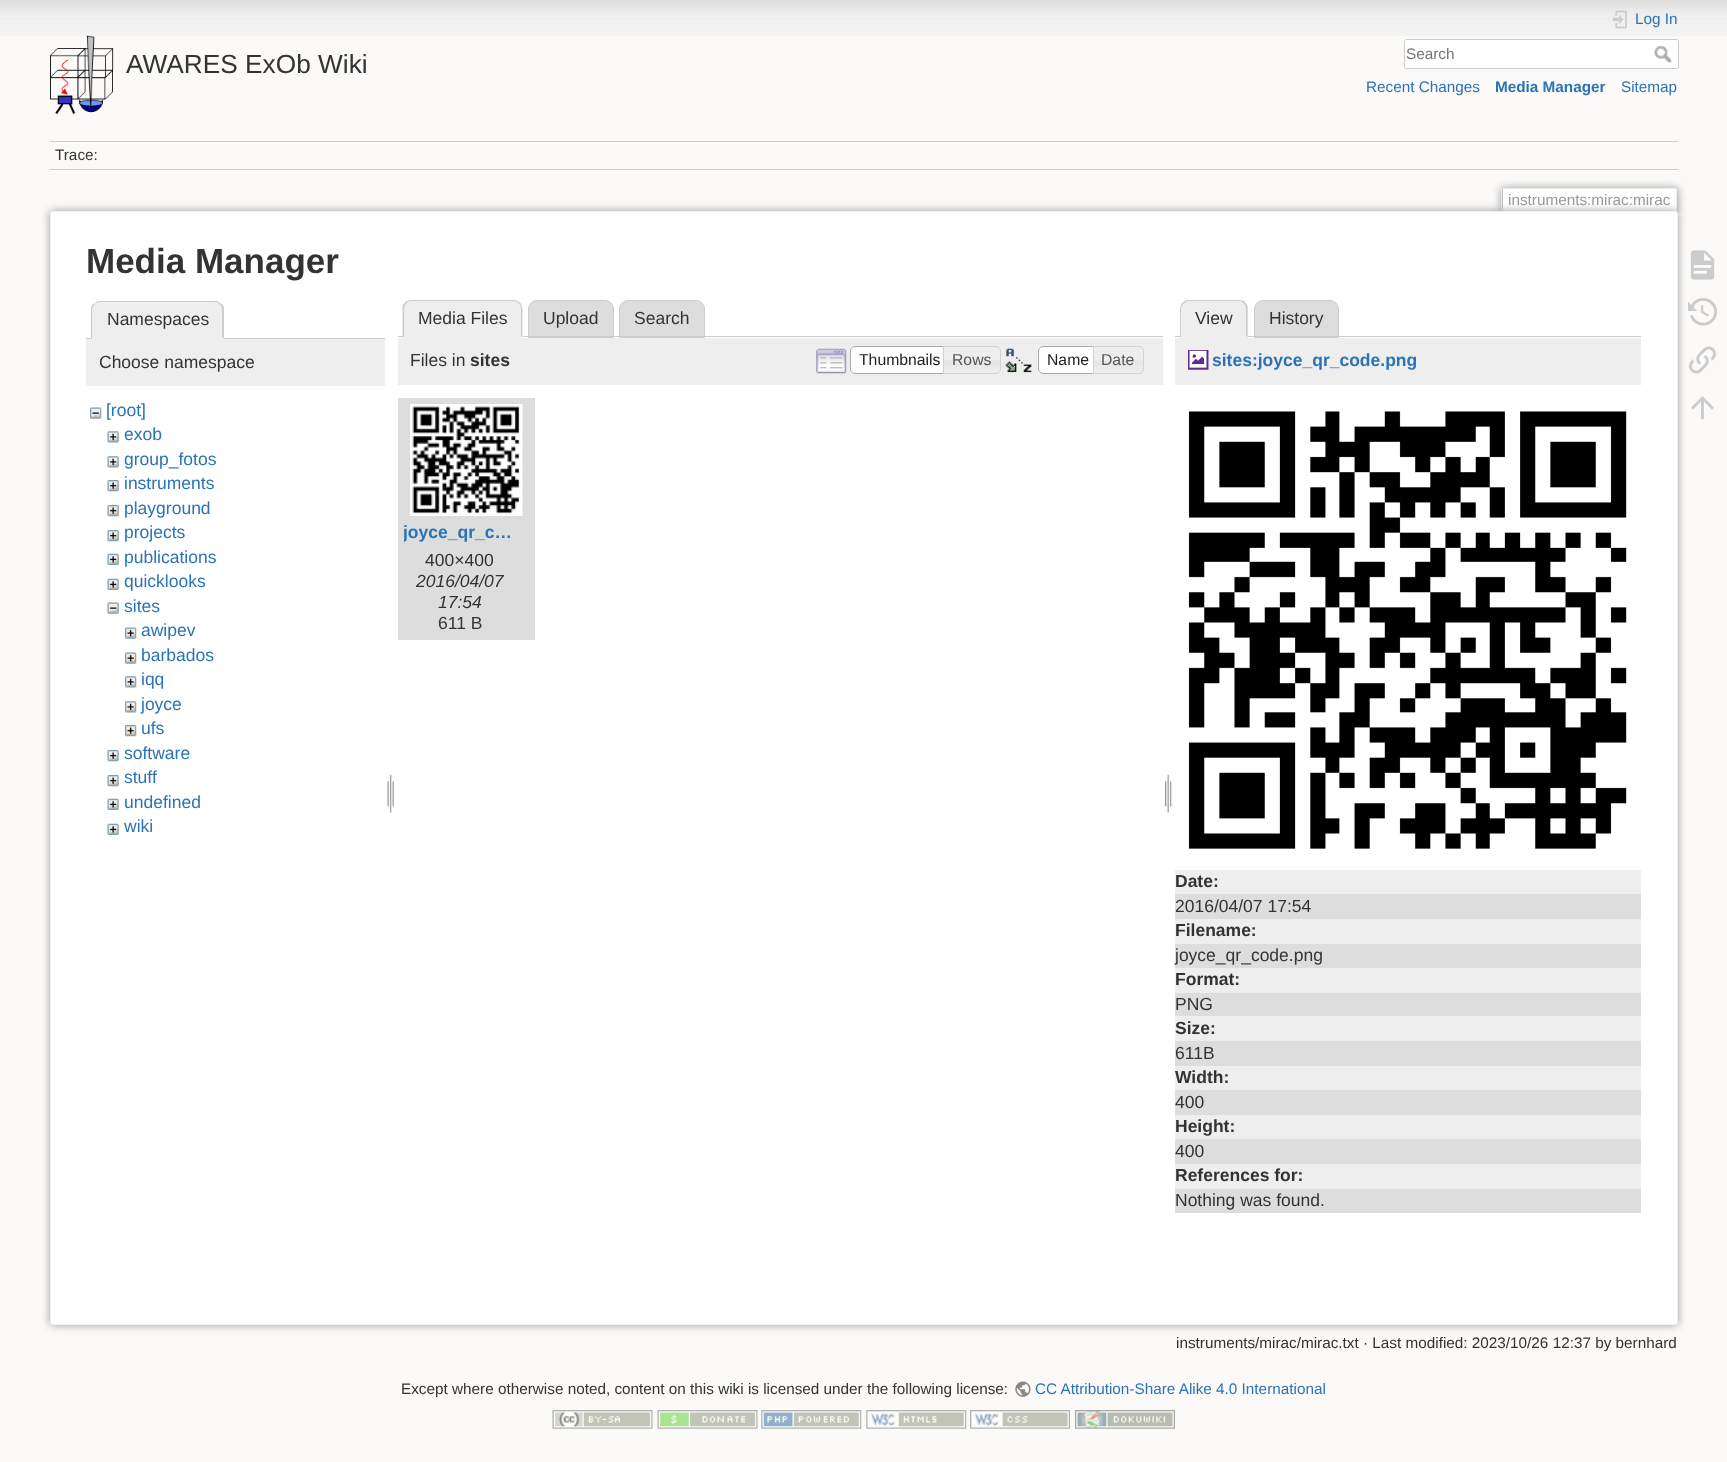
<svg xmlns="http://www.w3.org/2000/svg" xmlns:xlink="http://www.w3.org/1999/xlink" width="1727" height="1462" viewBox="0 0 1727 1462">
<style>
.cls-1{font:26.25px Liberation Sans;fill:#333333}
.cls-2{font:15.3px Liberation Sans;fill:#2b73b7}
.cls-3{font:15.3px Liberation Sans;fill:#757575}
.cls-4{font:bold 15.3px Liberation Sans;fill:#2b73b7}
.cls-5{font:15.3px Liberation Sans;fill:#333333}
.cls-6{font:15.3px Liberation Sans;fill:#999999}
.cls-7{font:bold 35px Liberation Sans;fill:#333333}
.cls-8{font:17.5px Liberation Sans;fill:#333333}
.cls-9{font:17.5px Liberation Sans;fill:#2b73b7}
.cls-10{font:bold 17.5px Liberation Sans;fill:#333333}
.cls-11{font:15.75px Liberation Sans;fill:#212121}
.cls-12{font:15.75px Liberation Sans;fill:#555555}
.cls-13{font:bold 17.5px Liberation Sans;fill:#2b73b7}
.cls-14{font:italic 17.5px Liberation Sans;fill:#333333}
</style>
<defs>
<clipPath id="clip1"><rect x="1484" y="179" width="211" height="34"/></clipPath>
<clipPath id="clip2"><rect x="404" y="516" width="112" height="33"/></clipPath>
</defs>
<rect width="100%" height="100%" fill="#fbfaf9"/>
<image xlink:href="image0.png" x="0" y="0" width="1727" height="36"/>
<image xlink:href="image1.png" x="50" y="35" width="64" height="80"/>
<image xlink:href="image2.png" x="1612" y="10" width="15" height="19"/>
<rect fill="#ffffff" stroke="#cccccc" x="1404.5" y="39.5" width="274" height="29" rx="2"/>
<image xlink:href="image3.png" x="1654" y="45" width="18" height="18"/>
<rect fill="#cccccc" x="50" y="141" width="1628" height="1"/>
<rect fill="#ffffff" x="50" y="170" width="1628" height="1"/>
<rect fill="#ffffff" x="50" y="143" width="1628" height="1"/>
<rect fill="#cccccc" x="50" y="169" width="1628" height="1"/>
<g clip-path="url(#clip1)">
<rect fill="#999999" filter="blur(4px)" x="1501" y="188" width="177" height="25" rx="2.5"/>
</g>
<path fill="#ffffff" d="M1504 189H1675C1675.5 189 1676 189.5 1676 190V213H1503V190C1503 189.5 1503.5 189 1504 189Z"/>
<rect fill="#eeeeee" x="1503" y="188" width="173" height="1"/>
<rect fill="#eeeeee" x="1676" y="189" width="1" height="24"/>
<rect fill="#eeeeee" x="1501" y="189" width="1" height="24"/>
<rect fill="#999999" filter="blur(4.5px)" x="50" y="211" width="1628" height="1114" rx="2.5"/>
<rect fill="#ffffff" stroke="#eeeeee" x="50.5" y="211.5" width="1627" height="1113" rx="2"/>
<rect fill="#cccccc" x="86" y="338" width="299" height="1"/>
<path fill="#eeeeee" d="M100 301H215C220 301 224 305 224 310V339H91V310C91 305 95 301 100 301Z"/>
<path fill="#cccccc" d="M100 302C98 302 96 303 94 304L98 301H217L221 304L220 305C219 303 217 302 215 302Z"/>
<path fill="#cccccc" d="M221.5 303.5C222.5 305 223.5 306 224 308V339L222 337V310C222 308 221.5 306 220 305Z"/>
<path fill="#eeeeee" d="M224 339L222 337V338H92L91 339Z"/>
<path fill="#cccccc" d="M91 339V308C91.5 306 92.5 305 93.5 303.5L94.5 304.5C93 306 92 308 92 310V338Z"/>
<rect fill="#eeeeee" x="86" y="339" width="299" height="47"/>
<image xlink:href="image4.png" x="90" y="407" width="12" height="12"/>
<image xlink:href="image5.png" x="107" y="431" width="12" height="12"/>
<image xlink:href="image5.png" x="107" y="456" width="12" height="12"/>
<image xlink:href="image6.png" x="107" y="480" width="12" height="12"/>
<image xlink:href="image6.png" x="107" y="505" width="12" height="12"/>
<image xlink:href="image6.png" x="107" y="530" width="12" height="12"/>
<image xlink:href="image7.png" x="107" y="553" width="12" height="12"/>
<image xlink:href="image7.png" x="107" y="578" width="12" height="12"/>
<image xlink:href="image8.png" x="107" y="602" width="12" height="12"/>
<image xlink:href="image9.png" x="125" y="627" width="12" height="12"/>
<image xlink:href="image9.png" x="125" y="652" width="12" height="12"/>
<image xlink:href="image10.png" x="125" y="676" width="12" height="12"/>
<image xlink:href="image10.png" x="125" y="701" width="12" height="12"/>
<image xlink:href="image11.png" x="125" y="725" width="12" height="12"/>
<image xlink:href="image6.png" x="107" y="750" width="12" height="12"/>
<image xlink:href="image12.png" x="107" y="775" width="12" height="12"/>
<image xlink:href="image7.png" x="107" y="798" width="12" height="12"/>
<image xlink:href="image7.png" x="107" y="823" width="12" height="12"/>
<image xlink:href="image13.png" x="387" y="774" width="7" height="39"/>
<path fill="#dddddd" stroke="#cccccc" d="M537 300.5H605C609.5 300.5 613.5 304.5 613.5 309V337.5H528.5V309C528.5 304.5 532.5 300.5 537 300.5Z"/>
<path fill="#dddddd" stroke="#cccccc" d="M628 300.5H696C700.5 300.5 704.5 304.5 704.5 309V337.5H619.5V309C619.5 304.5 623.5 300.5 628 300.5Z"/>
<rect fill="#cccccc" x="398" y="336" width="765" height="1"/>
<path fill="#eeeeee" d="M412 300H514C519 300 523 304 523 309V338H403V309C403 304 407 300 412 300Z"/>
<path fill="#cccccc" d="M411 300C409 300 406 301 405 302L406 304C407 302 409 301 411 301H514C516 301 518 302 519 304L520 303C518 301 516 300 514 300Z"/>
<path fill="#cccccc" d="M520 302.5C521 304 522 306.5 522 309V337L521 336V309C521 307 520 305 519 303.5Z"/>
<path fill="#eeeeee" d="M522 337V338H402L404 336H521Z"/>
<path fill="#cccccc" d="M402.5 337.5V306C403 304.5 404 303.5 405 302.5L406 303.5C405 305 404 307 404 309V336Z"/>
<rect fill="#eeeeee" x="398" y="338" width="765" height="47"/>
<image xlink:href="image14.png" x="816" y="348" width="31" height="26"/>
<path fill="#ffffff" stroke="#aaaaaa" d="M855 346.5H948.5V373.5H855C852.5 373.5 850.5 371.5 850.5 369V351C850.5 348.5 852.5 346.5 855 346.5Z"/>
<image xlink:href="image15.png" x="942" y="346" width="59" height="28"/>
<path fill="none" stroke="#d3d3d3" d="M943.5 346.5H996C998.5 346.5 1000.5 348.5 1000.5 351V369C1000.5 371.5 998.5 373.5 996 373.5H943.5Z"/>
<image xlink:href="image16.png" x="1005" y="348" width="27" height="25"/>
<path fill="#ffffff" d="M1043 346H1099V374H1043C1040 374 1038 372 1038 369V351C1038 348 1040 346 1043 346Z"/>
<image xlink:href="image17.png" x="1037" y="347" width="3" height="26"/>
<path fill="none" stroke="#aaaaaa" d="M1043 346.5H1098.5V373.5H1043C1040.5 373.5 1038.5 371.5 1038.5 369V351C1038.5 348.5 1040.5 346.5 1043 346.5Z"/>
<image xlink:href="image18.png" x="1092" y="346" width="52" height="28"/>
<path fill="none" stroke="#d3d3d3" d="M1093.5 346.5H1139C1141.5 346.5 1143.5 348.5 1143.5 351V369C1143.5 371.5 1141.5 373.5 1139 373.5H1093.5Z"/>
<rect fill="#dddddd" x="398" y="398" width="137" height="242"/>
<image xlink:href="image19.png" x="410" y="404" width="113" height="112"/>
<image xlink:href="image20.png" x="1165" y="774" width="7" height="39"/>
<path fill="#dddddd" stroke="#cccccc" d="M1263 300.5H1330C1334.5 300.5 1338.5 304.5 1338.5 309V337.5H1254.5V309C1254.5 304.5 1258.5 300.5 1263 300.5Z"/>
<rect fill="#cccccc" x="1175" y="336" width="466" height="1"/>
<path fill="#eeeeee" d="M1189 300H1239C1244 300 1248 304 1248 309V338H1180V309C1180 304 1184 300 1189 300Z"/>
<path fill="#cccccc" d="M1189 300C1186 300 1184 301 1183 303L1184 304C1185 302 1187 301 1189 301H1239C1241 301 1243 302 1244 304L1245 302C1244 301 1241 300 1239 300Z"/>
<path fill="#cccccc" d="M1245 302.5C1246 303.5 1247 304.5 1247.5 306V337.5L1246 336V309C1246 307 1245 305 1244 303.5Z"/>
<path fill="#eeeeee" d="M1248 338L1246 336H1182L1180 338Z"/>
<path fill="#cccccc" d="M1180 337.5L1181.5 336H1181V309C1181 307 1182 305 1183.5 303.5L1182.5 302.5C1181 304 1180 306.5 1180 309Z"/>
<rect fill="#eeeeee" x="1175" y="338" width="466" height="47"/>
<image xlink:href="image21.png" x="1188" y="350" width="21" height="20"/>
<image xlink:href="image22.png" x="1188" y="411" width="439" height="438"/>
<rect fill="#eeeeee" x="1175" y="870" width="466" height="24"/>
<rect fill="#dddddd" x="1175" y="894" width="466" height="25"/>
<rect fill="#eeeeee" x="1175" y="919" width="466" height="25"/>
<rect fill="#dddddd" x="1175" y="944" width="466" height="24"/>
<rect fill="#eeeeee" x="1175" y="968" width="466" height="25"/>
<rect fill="#dddddd" x="1175" y="993" width="466" height="23"/>
<rect fill="#eeeeee" x="1175" y="1016" width="466" height="25"/>
<rect fill="#dddddd" x="1175" y="1041" width="466" height="25"/>
<rect fill="#eeeeee" x="1175" y="1066" width="466" height="24"/>
<rect fill="#dddddd" x="1175" y="1090" width="466" height="25"/>
<rect fill="#eeeeee" x="1175" y="1115" width="466" height="24"/>
<rect fill="#dddddd" x="1175" y="1139" width="466" height="25"/>
<rect fill="#eeeeee" x="1175" y="1164" width="466" height="25"/>
<rect fill="#dddddd" x="1175" y="1189" width="466" height="24"/>
<image xlink:href="image23.png" x="1690" y="250" width="25" height="30"/>
<image xlink:href="image24.png" x="1688" y="298" width="29" height="28"/>
<image xlink:href="image25.png" x="1689" y="346" width="27" height="28"/>
<image xlink:href="image26.png" x="1691" y="396" width="23" height="24"/>
<image xlink:href="image27.png" x="1015" y="1381" width="16" height="16"/>
<image xlink:href="image28.png" x="552" y="1410" width="101" height="19"/>
<image xlink:href="image29.png" x="657" y="1410" width="101" height="19"/>
<image xlink:href="image30.png" x="761" y="1410" width="101" height="19"/>
<image xlink:href="image31.png" x="866" y="1410" width="101" height="19"/>
<image xlink:href="image32.png" x="970" y="1410" width="100" height="19"/>
<image xlink:href="image33.png" x="1075" y="1410" width="100" height="19"/>
<text class="cls-1" x="126" y="73">AWARES ExOb Wiki</text>
<text class="cls-2" x="1635" y="24">Log In</text>
<text class="cls-3" x="1406" y="59">Search</text>
<text class="cls-2" x="1366" y="92">Recent Changes</text>
<text class="cls-4" x="1495" y="92">Media Manager</text>
<text class="cls-2" x="1621" y="92">Sitemap</text>
<text class="cls-5" x="55" y="160">Trace:</text>
<text class="cls-6" x="1508" y="205">instruments:mirac:mirac</text>
<text class="cls-7" x="86" y="273">Media Manager</text>
<text class="cls-8" x="107" y="325">Namespaces</text>
<text class="cls-8" x="99" y="368">Choose namespace</text>
<text class="cls-9" x="106" y="416">[root]</text>
<text class="cls-9"><tspan x="124" y="440">exob</tspan><tspan x="124" y="465">group_fotos</tspan><tspan x="124" y="489">instruments</tspan><tspan x="124" y="514">playground</tspan><tspan x="124" y="538">projects</tspan><tspan x="124" y="563">publications</tspan><tspan x="124" y="587">quicklooks</tspan><tspan x="124" y="612">sites</tspan></text>
<text class="cls-9"><tspan x="141" y="636">awipev</tspan><tspan x="141" y="661">barbados</tspan><tspan x="141" y="685">iqq</tspan><tspan x="141" y="710">joyce</tspan><tspan x="141" y="734">ufs</tspan></text>
<text class="cls-9"><tspan x="124" y="759">software</tspan><tspan x="124" y="783">stuff</tspan><tspan x="124" y="808">undefined</tspan><tspan x="124" y="832">wiki</tspan></text>
<text class="cls-8" x="418" y="324">Media Files</text>
<text class="cls-8" x="543" y="324">Upload</text>
<text class="cls-8" x="634" y="324">Search</text>
<text class="cls-8" x="410" y="366">Files in</text>
<text class="cls-10" x="470" y="366">sites</text>
<text class="cls-11" x="859" y="365">Thumbnails</text>
<text class="cls-12" x="952" y="365">Rows</text>
<text class="cls-11" x="1047" y="365">Name</text>
<text class="cls-12" x="1101" y="365">Date</text>
<g clip-path="url(#clip2)">
<text class="cls-13" x="403" y="538">joyce_qr_c…</text>
</g>
<text class="cls-8" x="425" y="566">400×400</text>
<text class="cls-14" x="416" y="587">2016/04/07</text>
<text class="cls-14" x="438" y="608">17:54</text>
<text class="cls-8" x="438" y="629">611 B</text>
<text class="cls-8" x="1195" y="324">View</text>
<text class="cls-8" x="1269" y="324">History</text>
<text class="cls-13" x="1212" y="366">sites:joyce_qr_code.png</text>
<text class="cls-10" x="1175" y="887">Date:</text>
<text class="cls-8" x="1175" y="912">2016/04/07 17:54</text>
<text class="cls-10" x="1175" y="936">Filename:</text>
<text class="cls-8" x="1175" y="961">joyce_qr_code.png</text>
<text class="cls-10" x="1175" y="985">Format:</text>
<text class="cls-8" x="1175" y="1010">PNG</text>
<text class="cls-10" x="1175" y="1034">Size:</text>
<text class="cls-8" x="1175" y="1059">611B</text>
<text class="cls-10" x="1175" y="1083">Width:</text>
<text class="cls-8" x="1175" y="1108">400</text>
<text class="cls-10" x="1175" y="1132">Height:</text>
<text class="cls-8" x="1175" y="1157">400</text>
<text class="cls-10" x="1175" y="1181">References for:</text>
<text class="cls-8" x="1175" y="1206">Nothing was found.</text>
<text class="cls-5" x="1176" y="1348">instruments/mirac/mirac.txt · Last modified: 2023/10/26 12:37 by bernhard</text>
<text class="cls-5" x="401" y="1394">Except where otherwise noted, content on this wiki is licensed under the following license:</text>
<text class="cls-2" x="1035" y="1394">CC Attribution-Share Alike 4.0 International</text>
</svg>
